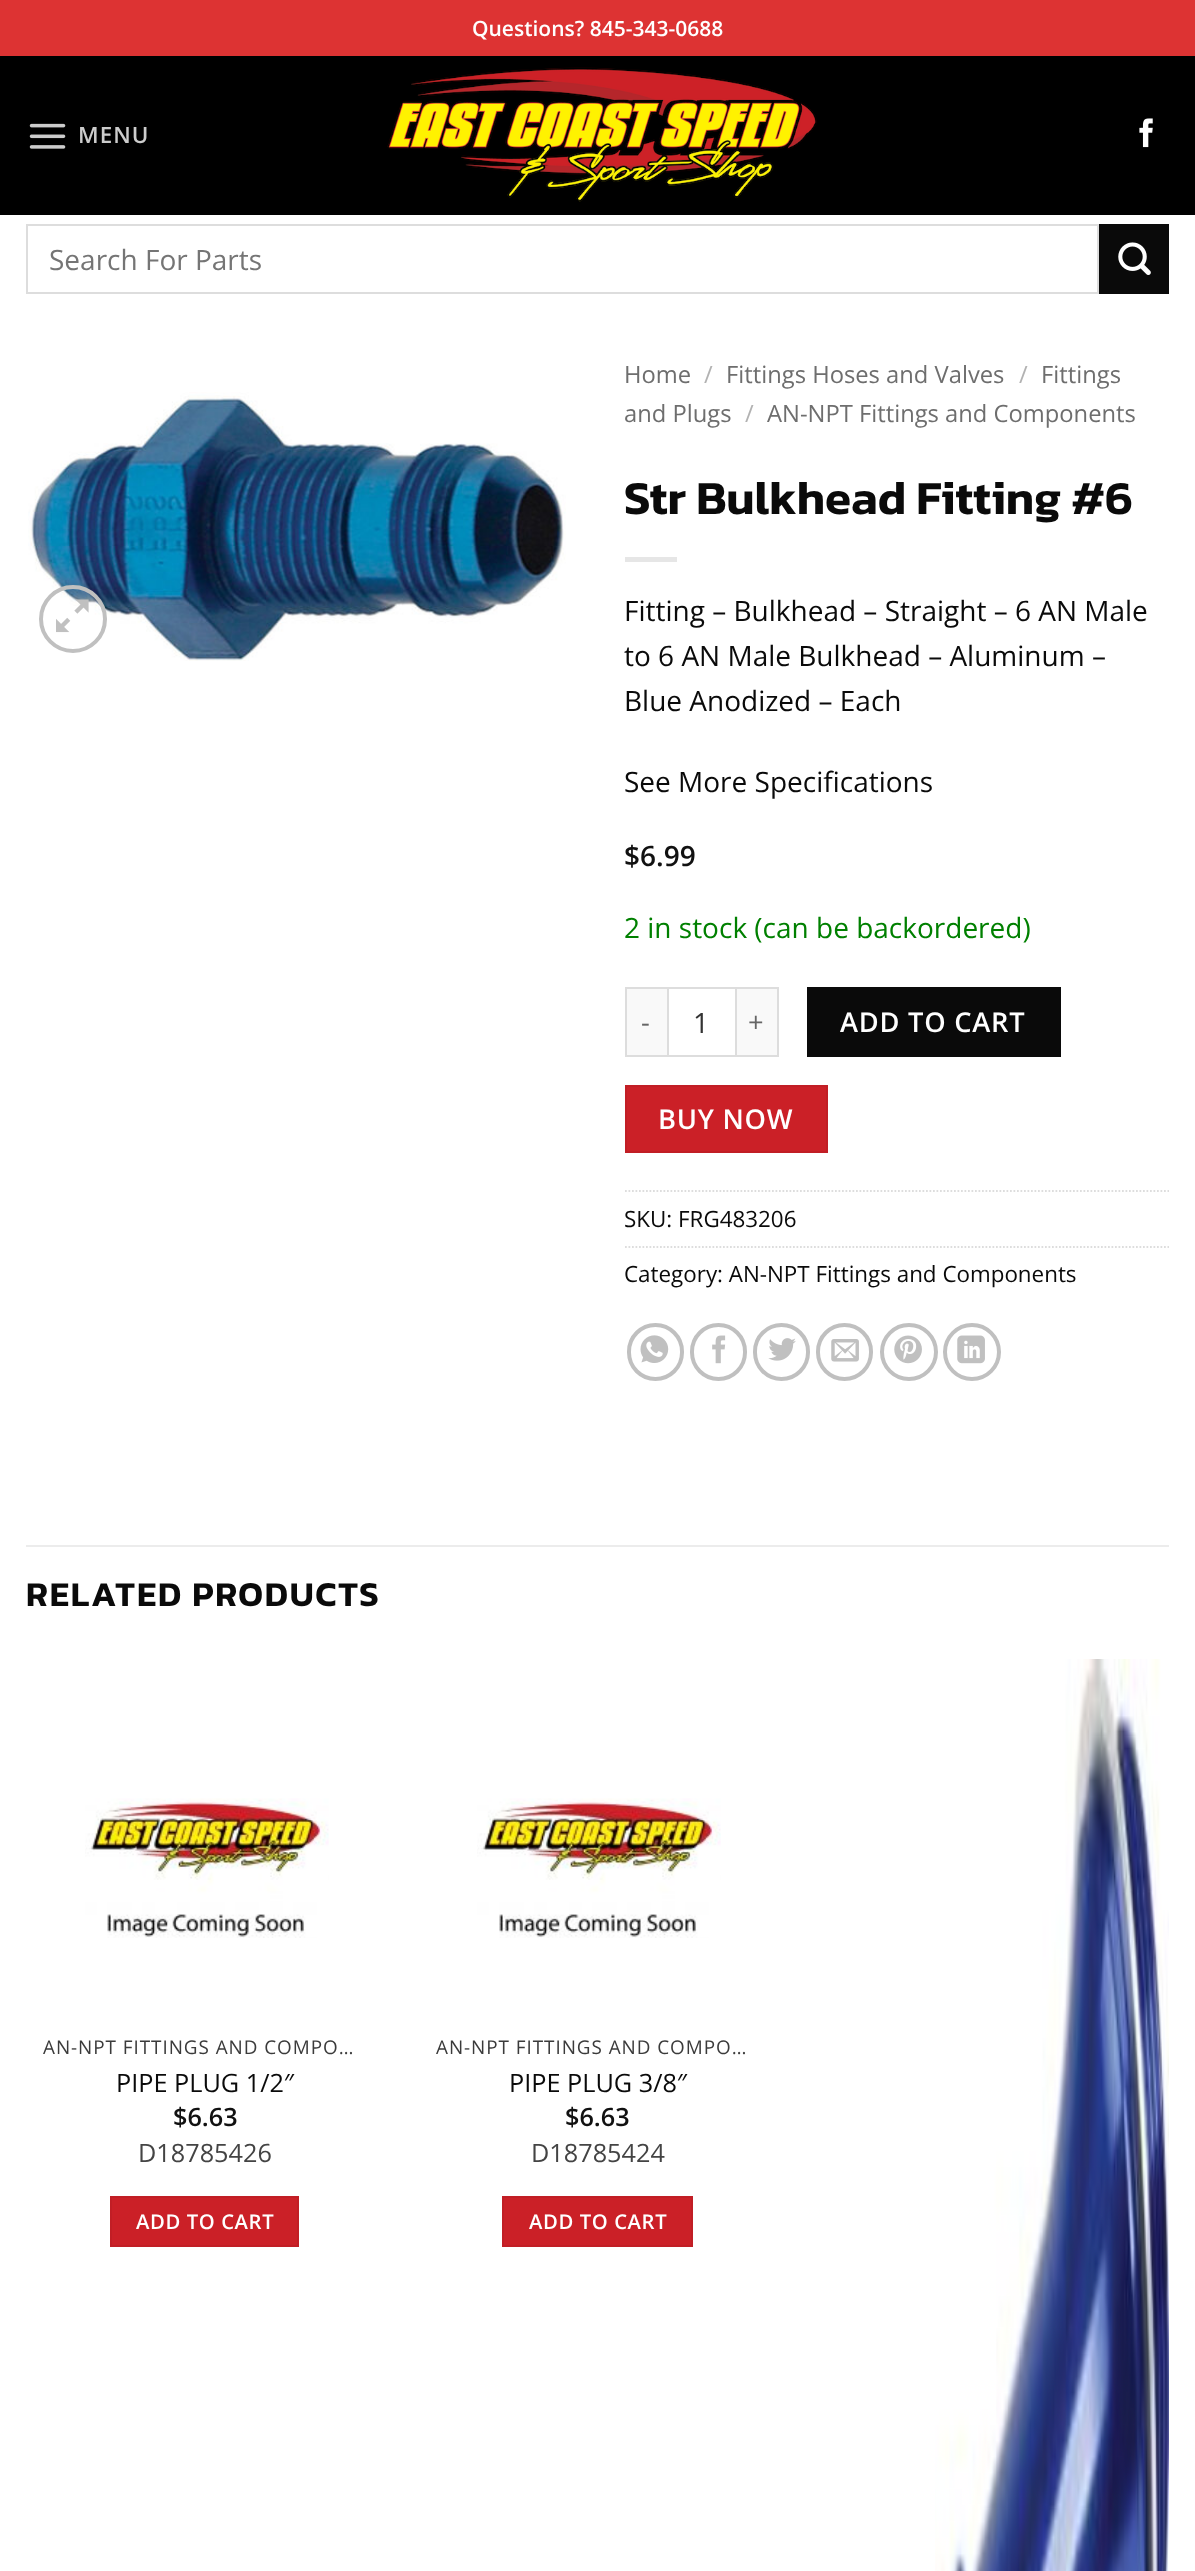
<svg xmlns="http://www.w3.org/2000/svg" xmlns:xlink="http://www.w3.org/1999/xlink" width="1195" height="2571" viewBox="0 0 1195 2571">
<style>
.cls-1{font:600 21px Open Sans;fill:#ffffff}
.cls-2{font:600 22.4px Open Sans;letter-spacing:1px;fill:#cccccc}
.cls-3{font:28px Open Sans;fill:#757575}
.cls-4{font:23.75px Open Sans;fill:#6e6e6e}
.cls-5{font:23.75px Open Sans;fill:#b2b2b2}
.cls-6{font:600 47.6px Kanit;fill:#0a0a0a}
.cls-7{font:28px Open Sans;fill:#0a0a0a}
.cls-8{font:600 28px Open Sans;fill:#111111}
.cls-9{font:28px Open Sans;fill:#008000}
.cls-10{font:27.25px Open Sans;letter-spacing:0.75px;fill:#666666}
.cls-11{font:28px Open Sans;fill:#333333}
.cls-12{font:600 27.25px Open Sans;letter-spacing:0.75px;fill:#ffffff}
.cls-13{font:22.4px Open Sans;fill:#0a0a0a}
.cls-14{font:600 35px Kanit;letter-spacing:1.75px;fill:#0a0a0a}
.cls-15{font:18.9px Open Sans;letter-spacing:0.95px;fill:#3b3b3b}
.cls-16{font:25.25px Open Sans;fill:#0a0a0a}
.cls-17{font:600 25.25px Open Sans;fill:#111111}
.cls-18{font:25.25px Open Sans;fill:#444444}
.cls-19{font:600 20.25px Open Sans;letter-spacing:0.6px;fill:#ffffff}
</style>
<rect width="100%" height="100%" fill="#ffffff"/>
<rect fill="#dd3333" x="0" y="0" width="1195" height="56"/>
<rect fill="#000000" x="0" y="56" width="1195" height="159"/>
<image xlink:href="image0.png" x="29" y="123" width="37" height="26"/>
<image xlink:href="image1.png" x="387" y="67" width="430" height="135"/>
<image xlink:href="image2.png" x="1139" y="118" width="14" height="30"/>
<rect fill="none" stroke="#dddddd" stroke-width="2" x="27" y="225" width="1071" height="68"/>
<rect fill="#0a0a0a" x="1099" y="224" width="70" height="70"/>
<image xlink:href="image3.png" x="1118" y="242" width="33" height="33"/>
<image xlink:href="image4.png" x="28" y="392" width="538" height="269"/>
<circle fill="none" stroke="#c0c0c0" stroke-width="4" cx="73" cy="619" r="32"/>
<image xlink:href="image5.png" x="56" y="599" width="33" height="34"/>
<rect fill="#e6e6e6" x="625" y="557" width="52" height="5"/>
<rect fill="#f9f9f9" x="627" y="989" width="40" height="66"/>
<rect fill="#dddddd" x="625" y="987" width="42" height="2"/>
<rect fill="#dddddd" x="625" y="1055" width="42" height="2"/>
<rect fill="#dddddd" x="625" y="987" width="2" height="70"/>
<rect fill="none" stroke="#dddddd" stroke-width="2" x="668" y="988" width="68" height="68"/>
<rect fill="#f9f9f9" x="737" y="989" width="40" height="66"/>
<rect fill="#dddddd" x="737" y="987" width="42" height="2"/>
<rect fill="#dddddd" x="777" y="987" width="2" height="70"/>
<rect fill="#dddddd" x="737" y="1055" width="42" height="2"/>
<rect fill="#0a0a0a" x="807" y="987" width="254" height="70"/>
<rect fill="#cb2027" stroke="#c11e25" stroke-width="2" x="626" y="1086" width="201" height="66"/>
<path fill="none" stroke="#dddddd" stroke-width="1.8" stroke-dasharray="1.75 1.75" d="M625 1191H1169"/>
<path fill="none" stroke="#dddddd" stroke-width="1.8" stroke-dasharray="1.75 1.75" d="M625 1247H1169"/>
<rect fill="none" stroke="#c0c0c0" stroke-width="4" x="629" y="1325" width="53" height="54" rx="26.5"/>
<image xlink:href="image6.png" x="640" y="1335" width="29" height="28"/>
<rect fill="none" stroke="#c0c0c0" stroke-width="4" x="692" y="1325" width="53" height="54" rx="26.5"/>
<image xlink:href="image7.png" x="712" y="1335" width="14" height="29"/>
<rect fill="none" stroke="#c0c0c0" stroke-width="4" x="755" y="1325" width="53" height="54" rx="26.5"/>
<image xlink:href="image8.png" x="768" y="1338" width="28" height="23"/>
<rect fill="none" stroke="#c0c0c0" stroke-width="4" x="818" y="1325" width="53" height="54" rx="26.5"/>
<image xlink:href="image9.png" x="831" y="1339" width="28" height="23"/>
<circle fill="none" stroke="#c0c0c0" stroke-width="4" cx="909" cy="1352" r="27"/>
<image xlink:href="image10.png" x="894" y="1335" width="28" height="29"/>
<circle fill="none" stroke="#c0c0c0" stroke-width="4" cx="972" cy="1352" r="27"/>
<image xlink:href="image11.png" x="957" y="1335" width="28" height="29"/>
<rect fill="#ececec" x="26" y="1545" width="1143" height="2"/>
<image xlink:href="image12.png" x="85" y="1798" width="244" height="140"/>
<rect fill="#cb2027" stroke="#c11e25" stroke-width="2" x="111" y="2197" width="187" height="49"/>
<image xlink:href="image12.png" x="477" y="1798" width="244" height="140"/>
<rect fill="#cb2027" stroke="#c11e25" stroke-width="2" x="503" y="2197" width="189" height="49"/>
<image xlink:href="image13.png" x="935" y="1659" width="234" height="912"/>
<text class="cls-1" x="472" y="36">Questions? 845-343-0688</text>
<text class="cls-2" x="78" y="143">MENU</text>
<text class="cls-3" x="49" y="270">Search For Parts</text>
<text class="cls-4" x="624" y="383">Home</text>
<text class="cls-5" x="704" y="383">/</text>
<text class="cls-4" x="726" y="383">Fittings Hoses and Valves</text>
<text class="cls-5" x="1019" y="383">/</text>
<text class="cls-4" x="1041" y="383">Fittings</text>
<text class="cls-4" x="624" y="422">and Plugs</text>
<text class="cls-5" x="745" y="422">/</text>
<text class="cls-4" x="767" y="422">AN-NPT Fittings and Components</text>
<text class="cls-6" x="624" y="514">Str Bulkhead Fitting #6</text>
<text class="cls-7"><tspan x="624" y="621">Fitting – Bulkhead – Straight – 6 AN Male</tspan><tspan x="624" y="666">to 6 AN Male Bulkhead – Aluminum –</tspan><tspan x="624" y="711">Blue Anodized – Each</tspan></text>
<text class="cls-7" x="624" y="792">See More Specifications</text>
<text class="cls-8" x="624" y="866">$6.99</text>
<text class="cls-9" x="624" y="938">2 in stock (can be backordered)</text>
<text class="cls-10" x="641" y="1032">-</text>
<text class="cls-11" x="693" y="1033">1</text>
<text class="cls-10" x="748" y="1032">+</text>
<text class="cls-12" x="840" y="1032">ADD TO CART</text>
<text class="cls-12" x="658" y="1129">BUY NOW</text>
<text class="cls-13" x="624" y="1227">SKU: FRG483206</text>
<text class="cls-13" x="624" y="1282">Category: AN-NPT Fittings and Components</text>
<text class="cls-14" x="26" y="1606">RELATED PRODUCTS</text>
<text class="cls-15" x="43" y="2054">AN-NPT FITTINGS AND COMPO…</text>
<text class="cls-16" x="116" y="2092">PIPE PLUG 1/2″</text>
<text class="cls-17" x="173" y="2126">$6.63</text>
<text class="cls-18" x="138" y="2162">D18785426</text>
<text class="cls-19" x="136" y="2229">ADD TO CART</text>
<text class="cls-15" x="436" y="2054">AN-NPT FITTINGS AND COMPO…</text>
<text class="cls-16" x="509" y="2092">PIPE PLUG 3/8″</text>
<text class="cls-17" x="565" y="2126">$6.63</text>
<text class="cls-18" x="531" y="2162">D18785424</text>
<text class="cls-19" x="529" y="2229">ADD TO CART</text>
</svg>
